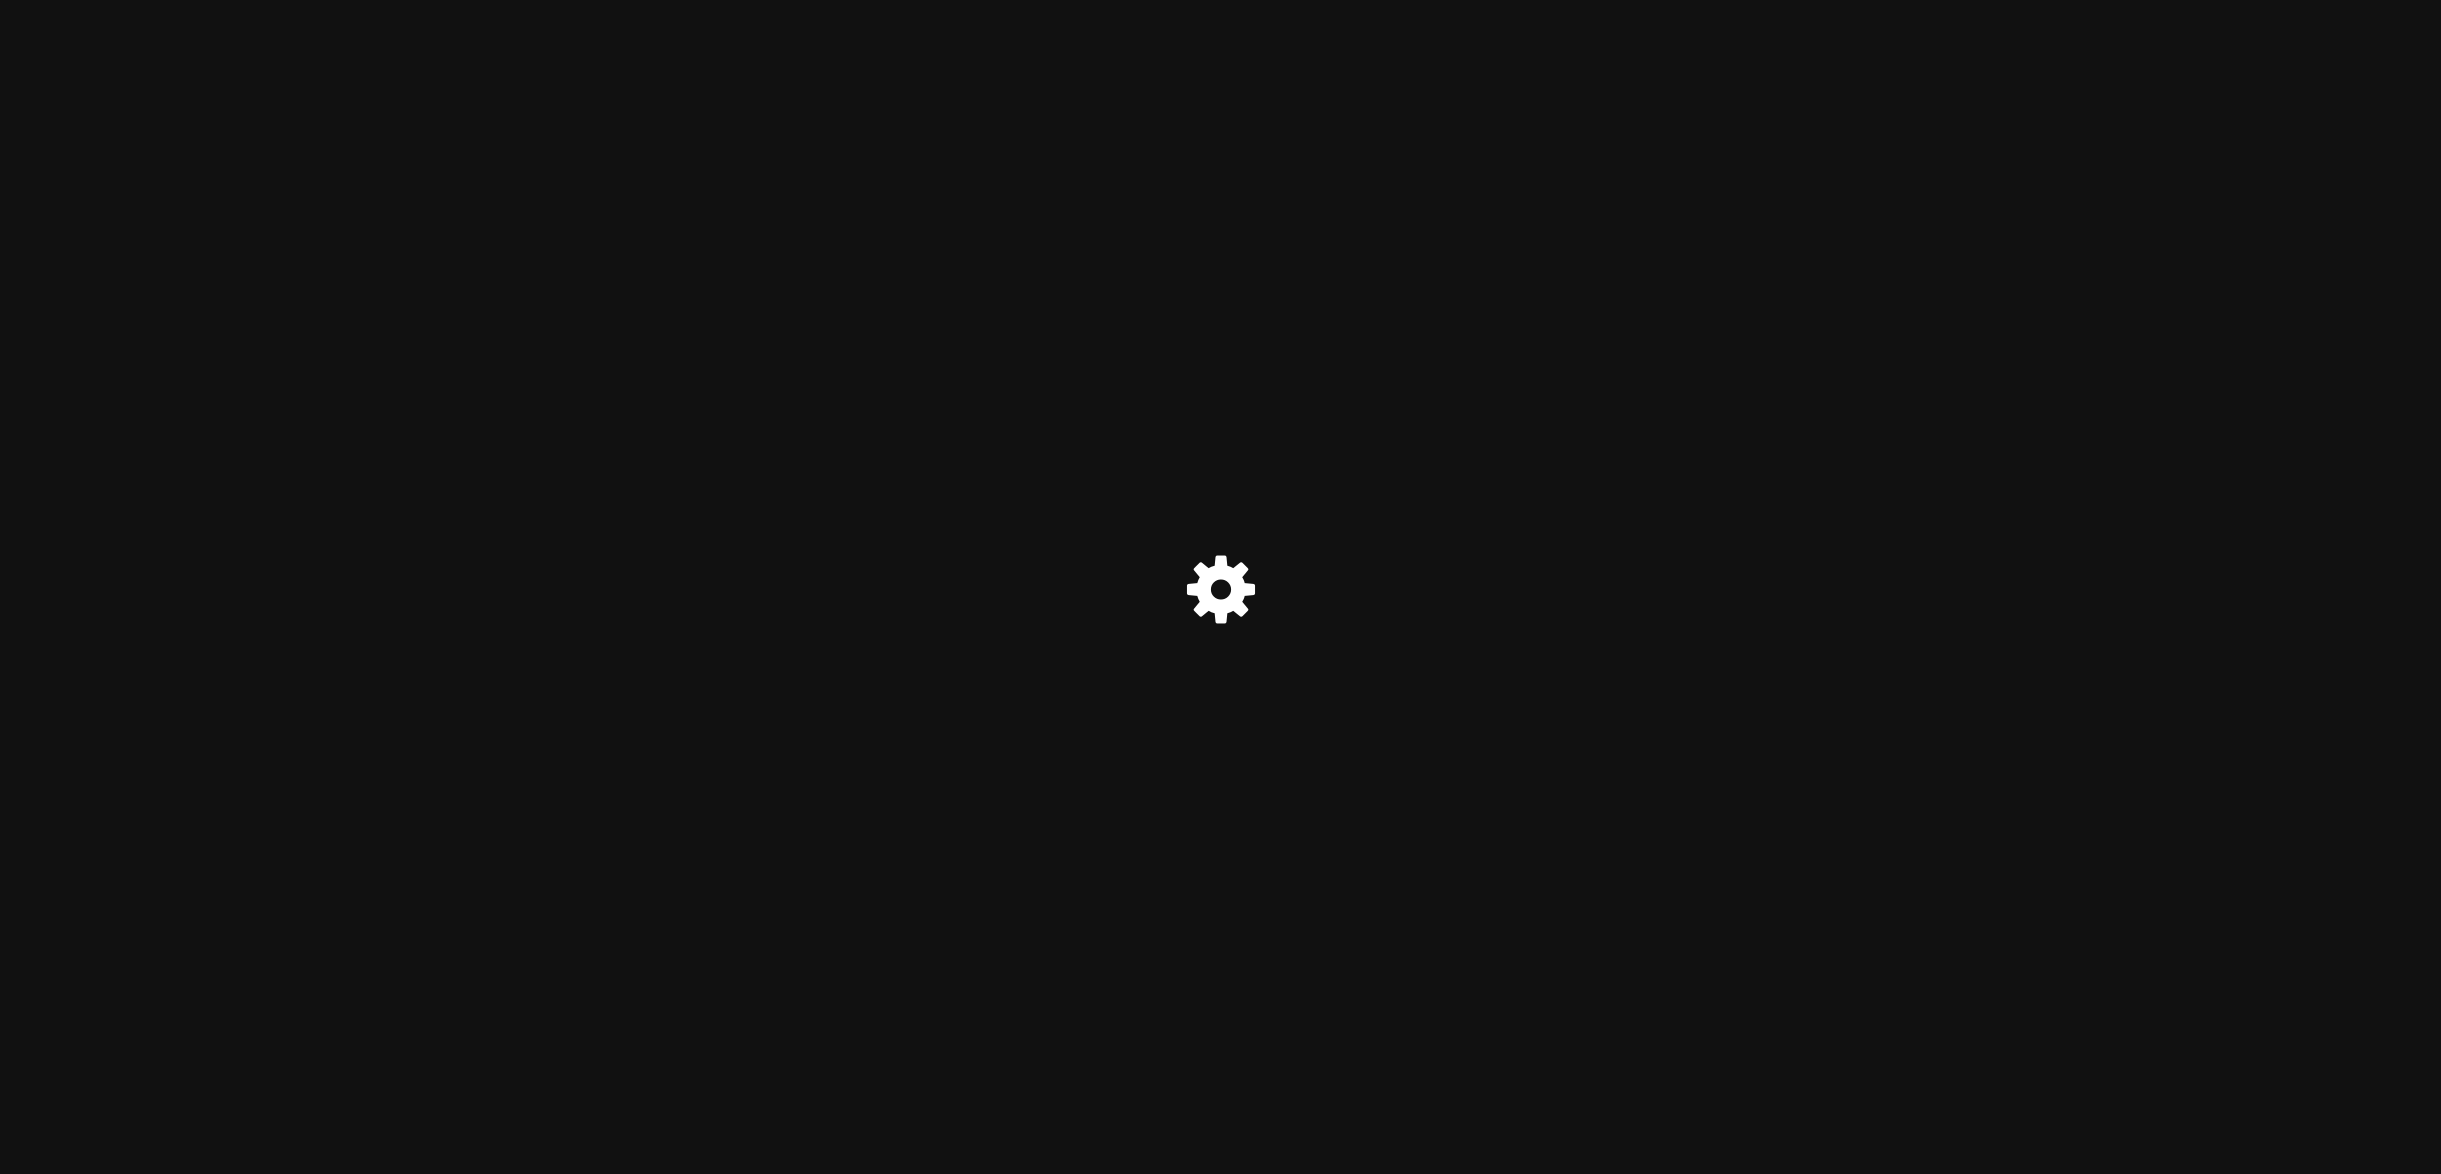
<svg xmlns="http://www.w3.org/2000/svg" xmlns:xlink="http://www.w3.org/1999/xlink" width="2441" height="1174" viewBox="0 0 2441 1174">
<rect width="100%" height="100%" fill="#111111"/>
<image xlink:href="image0.png" x="1186" y="555" width="70" height="69"/>
</svg>
